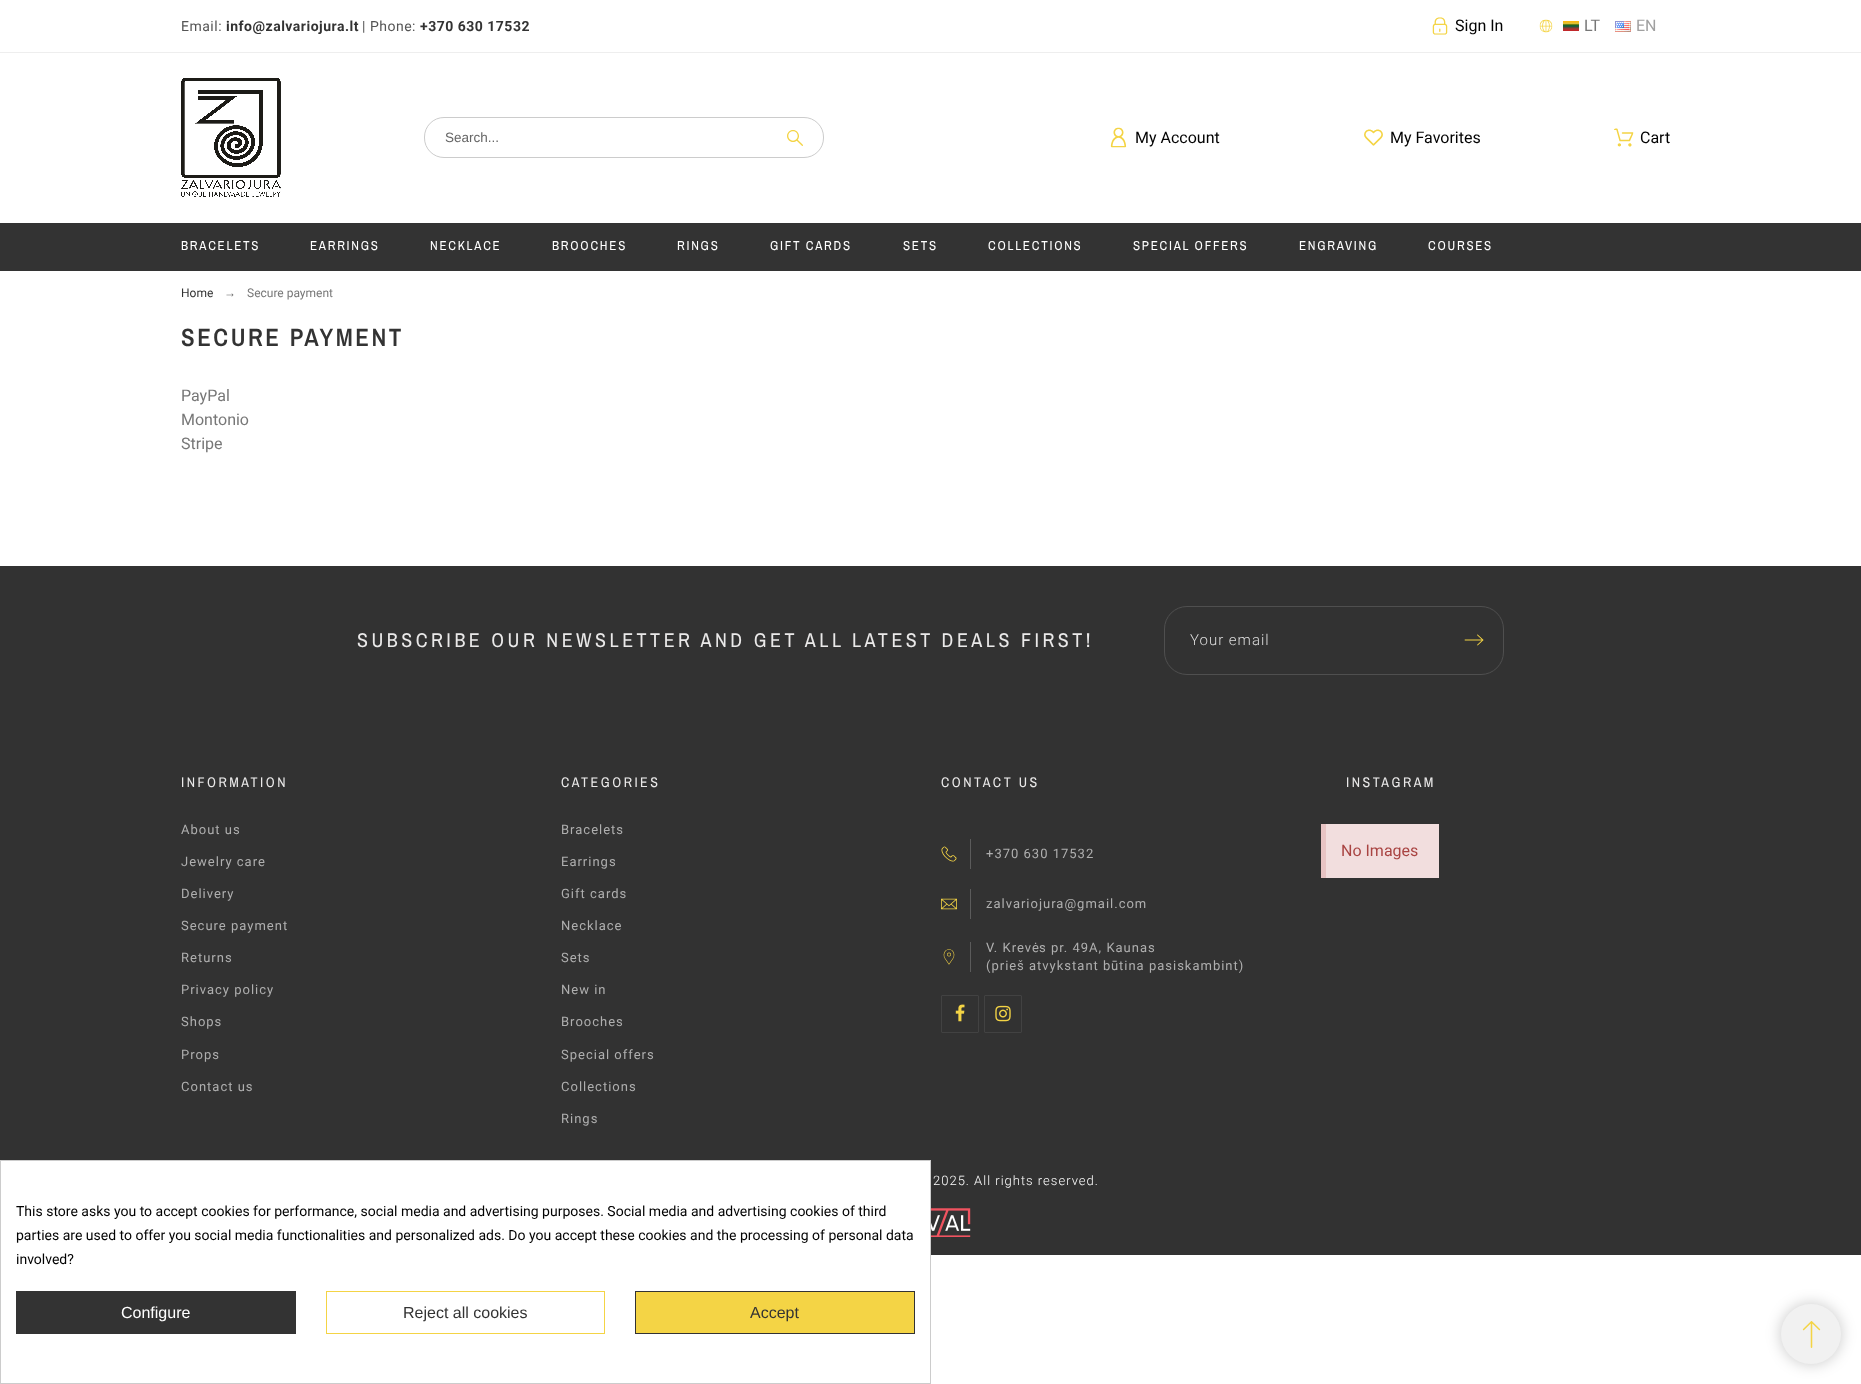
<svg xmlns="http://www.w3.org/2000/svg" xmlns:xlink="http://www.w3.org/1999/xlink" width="1861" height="1384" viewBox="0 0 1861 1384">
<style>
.cls-1{font:14px Roboto;letter-spacing:0.5px;fill:#555555}
.cls-2{font:bold 14px Roboto;letter-spacing:0.5px;fill:#333333}
.cls-3{font:16px Roboto;fill:#020202}
.cls-4{font:16px Roboto;fill:#777777}
.cls-5{font:16px Roboto;fill:#a0a0a0}
.cls-6{font:13.5px Liberation Sans;fill:#666666}
.cls-7{font:13px Archivo Narrow;letter-spacing:1.75px;fill:#ffffff}
.cls-8{font:12px Roboto;fill:#333333}
.cls-9{font:12px Liberation Serif;fill:#666666}
.cls-10{font:12px Roboto;fill:#777777}
.cls-11{font:600 25px Archivo Narrow;letter-spacing:2.5px;fill:#333333}
.cls-12{font:20px Archivo Narrow;letter-spacing:3.5px;fill:#eae9e9}
.cls-13{font:300 15px Roboto;letter-spacing:1px;fill:#dcdcdc}
.cls-14{font:14px Archivo Narrow;letter-spacing:2.5px;fill:#eae9e9}
.cls-15{font:13px Roboto;letter-spacing:1px;fill:#afafaf}
.cls-16{font:13px 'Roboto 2';letter-spacing:1px;fill:#afafaf}
.cls-17{font:16px Roboto;fill:#a94442}
.cls-18{font:300 13px Roboto;letter-spacing:1px;fill:#ffffff}
.cls-19{font:14px Roboto;fill:#020202}
.cls-20{font:16px Liberation Sans;fill:#ffffff}
.cls-21{font:16px Liberation Sans;fill:#333333}
</style>
<rect width="100%" height="100%" fill="#ffffff"/>
<rect fill="#eeeeee" x="0" y="52" width="1861" height="1"/>
<image xlink:href="image0.png" x="1432" y="17" width="16" height="18"/>
<image xlink:href="image1.png" x="1539" y="19" width="14" height="14"/>
<image xlink:href="image2.png" x="1563" y="21" width="16" height="10"/>
<image xlink:href="image3.png" x="1615" y="21" width="16" height="11"/>
<image xlink:href="image4.png" x="181" y="78" width="100" height="119"/>
<rect fill="none" stroke="#cccccc" x="424.5" y="117.5" width="399" height="40" rx="19.5"/>
<image xlink:href="image5.png" x="787" y="130" width="16" height="16"/>
<image xlink:href="image6.png" x="1110" y="127" width="17" height="21"/>
<image xlink:href="image7.png" x="1364" y="129" width="19" height="17"/>
<image xlink:href="image8.png" x="1614" y="128" width="20" height="19"/>
<rect fill="#333333" x="0" y="223" width="1861" height="48"/>
<rect fill="#323232" x="0" y="566" width="1861" height="689"/>
<rect fill="none" stroke="#4f4f4f" x="1164.5" y="606.5" width="339" height="68" rx="22.5"/>
<image xlink:href="image9.png" x="1464" y="634" width="20" height="12"/>
<rect fill="#5b5b5b" x="970" y="839" width="1" height="30"/>
<image xlink:href="image10.png" x="941" y="846" width="16" height="16"/>
<rect fill="#5b5b5b" x="970" y="889" width="1" height="30"/>
<image xlink:href="image11.png" x="941" y="898" width="16" height="12"/>
<rect fill="#5b5b5b" x="970" y="942" width="1" height="30"/>
<image xlink:href="image12.png" x="943" y="949" width="12" height="16"/>
<rect fill="none" stroke="#424242" x="941.5" y="995.5" width="37" height="37" rx="0.5"/>
<image xlink:href="image13.png" x="955" y="1004" width="10" height="18"/>
<rect fill="none" stroke="#424242" x="984.5" y="995.5" width="37" height="37" rx="0.5"/>
<image xlink:href="image14.png" x="995" y="1005" width="16" height="17"/>
<rect fill="#f2dede" x="1326" y="824" width="113" height="54"/>
<rect fill="#e8c4c4" x="1321" y="824" width="5" height="54"/>
<image xlink:href="image15.png" x="931" y="1208" width="40" height="29"/>
<rect fill="#ffffff" x="1" y="1161" width="929" height="94"/>
<rect fill="none" stroke="#cccccc" x="0.5" y="1160.5" width="930" height="223"/>
<rect fill="#333333" x="16" y="1291" width="280" height="43"/>
<rect fill="none" stroke="#f4d445" x="326.5" y="1291.5" width="278" height="42"/>
<rect fill="#f4d445" stroke="#333333" x="635.5" y="1291.5" width="279" height="42"/>
<rect fill="#000000" fill-opacity="0.22" filter="blur(7.5px)" x="1781" y="1304" width="60" height="60" rx="30"/>
<circle fill="#f1f1f1" cx="1811" cy="1334" r="30"/>
<image xlink:href="image16.png" x="1802" y="1321" width="19" height="27"/>
<text class="cls-1" x="181" y="31">Email:</text>
<text class="cls-2" x="226" y="31">info@zalvariojura.lt</text>
<text class="cls-1" x="362" y="31">| Phone:</text>
<text class="cls-2" x="420" y="31">+370 630 17532</text>
<text class="cls-3" x="1455" y="31">Sign In</text>
<text class="cls-4" x="1584" y="31">LT</text>
<text class="cls-5" x="1636" y="31">EN</text>
<text class="cls-6" x="445" y="142">Search...</text>
<text class="cls-3" x="1135" y="143">My Account</text>
<text class="cls-3" x="1390" y="143">My Favorites</text>
<text class="cls-3" x="1640" y="143">Cart</text>
<text class="cls-7" x="181" y="250">BRACELETS</text>
<text class="cls-7" x="310" y="250">EARRINGS</text>
<text class="cls-7" x="430" y="250">NECKLACE</text>
<text class="cls-7" x="552" y="250">BROOCHES</text>
<text class="cls-7" x="677" y="250">RINGS</text>
<text class="cls-7" x="770" y="250">GIFT CARDS</text>
<text class="cls-7" x="903" y="250">SETS</text>
<text class="cls-7" x="988" y="250">COLLECTIONS</text>
<text class="cls-7" x="1133" y="250">SPECIAL OFFERS</text>
<text class="cls-7" x="1299" y="250">ENGRAVING</text>
<text class="cls-7" x="1428" y="250">COURSES</text>
<text class="cls-8" x="181" y="297">Home</text>
<text class="cls-9" x="224" y="297">→</text>
<text class="cls-10" x="247" y="297">Secure payment</text>
<text class="cls-11" x="181" y="346">SECURE PAYMENT</text>
<text class="cls-4"><tspan x="181" y="401">PayPal</tspan><tspan x="181" y="425">Montonio</tspan><tspan x="181" y="449">Stripe</tspan></text>
<text class="cls-12" x="357" y="647">SUBSCRIBE OUR NEWSLETTER AND GET ALL LATEST DEALS FIRST!</text>
<text class="cls-13" x="1190" y="645">Your email</text>
<text class="cls-14" x="181" y="787">INFORMATION</text>
<text class="cls-15" x="181" y="834">About us</text>
<text class="cls-15" x="181" y="866">Jewelry care</text>
<text class="cls-15" x="181" y="898">Delivery</text>
<text class="cls-15" x="181" y="930">Secure payment</text>
<text class="cls-15" x="181" y="962">Returns</text>
<text class="cls-15" x="181" y="994">Privacy policy</text>
<text class="cls-15" x="181" y="1026">Shops</text>
<text class="cls-15" x="181" y="1059">Props</text>
<text class="cls-15" x="181" y="1091">Contact us</text>
<text class="cls-14" x="561" y="787">CATEGORIES</text>
<text class="cls-15" x="561" y="834">Bracelets</text>
<text class="cls-15" x="561" y="866">Earrings</text>
<text class="cls-15" x="561" y="898">Gift cards</text>
<text class="cls-15" x="561" y="930">Necklace</text>
<text class="cls-15" x="561" y="962">Sets</text>
<text class="cls-15" x="561" y="994">New in</text>
<text class="cls-15" x="561" y="1026">Brooches</text>
<text class="cls-15" x="561" y="1059">Special offers</text>
<text class="cls-15" x="561" y="1091">Collections</text>
<text class="cls-15" x="561" y="1123">Rings</text>
<text class="cls-14" x="941" y="787">CONTACT US</text>
<text class="cls-15" x="986" y="858">+370 630 17532</text>
<text class="cls-15" x="986" y="908">zalvariojura@gmail.com</text>
<text class="cls-15" x="986" y="952">V. Krev</text>
<text class="cls-16" x="1032" y="952">ė</text>
<text class="cls-15" x="1039" y="952">s pr. 49A, Kaunas</text>
<text class="cls-15" x="986" y="970">(prie</text>
<text class="cls-16" x="1017" y="970">š</text>
<text class="cls-15" x="1029" y="970">atvykstant b</text>
<text class="cls-16" x="1111" y="970">ū</text>
<text class="cls-15" x="1119" y="970">tina pasiskambint)</text>
<text class="cls-14" x="1346" y="787">INSTAGRAM</text>
<text class="cls-17" x="1341" y="856">No Images</text>
<text class="cls-18" x="933" y="1185">2025. All rights reserved.</text>
<text class="cls-19"><tspan x="16" y="1216">This store asks you to accept cookies for performance, social media and advertising purposes. Social media and advertising cookies of third</tspan><tspan x="16" y="1240">parties are used to offer you social media functionalities and personalized ads. Do you accept these cookies and the processing of personal data</tspan><tspan x="16" y="1264">involved?</tspan></text>
<text class="cls-20" x="121" y="1318">Configure</text>
<text class="cls-21" x="403" y="1318">Reject all cookies</text>
<text class="cls-21" x="750" y="1318">Accept</text>
</svg>
